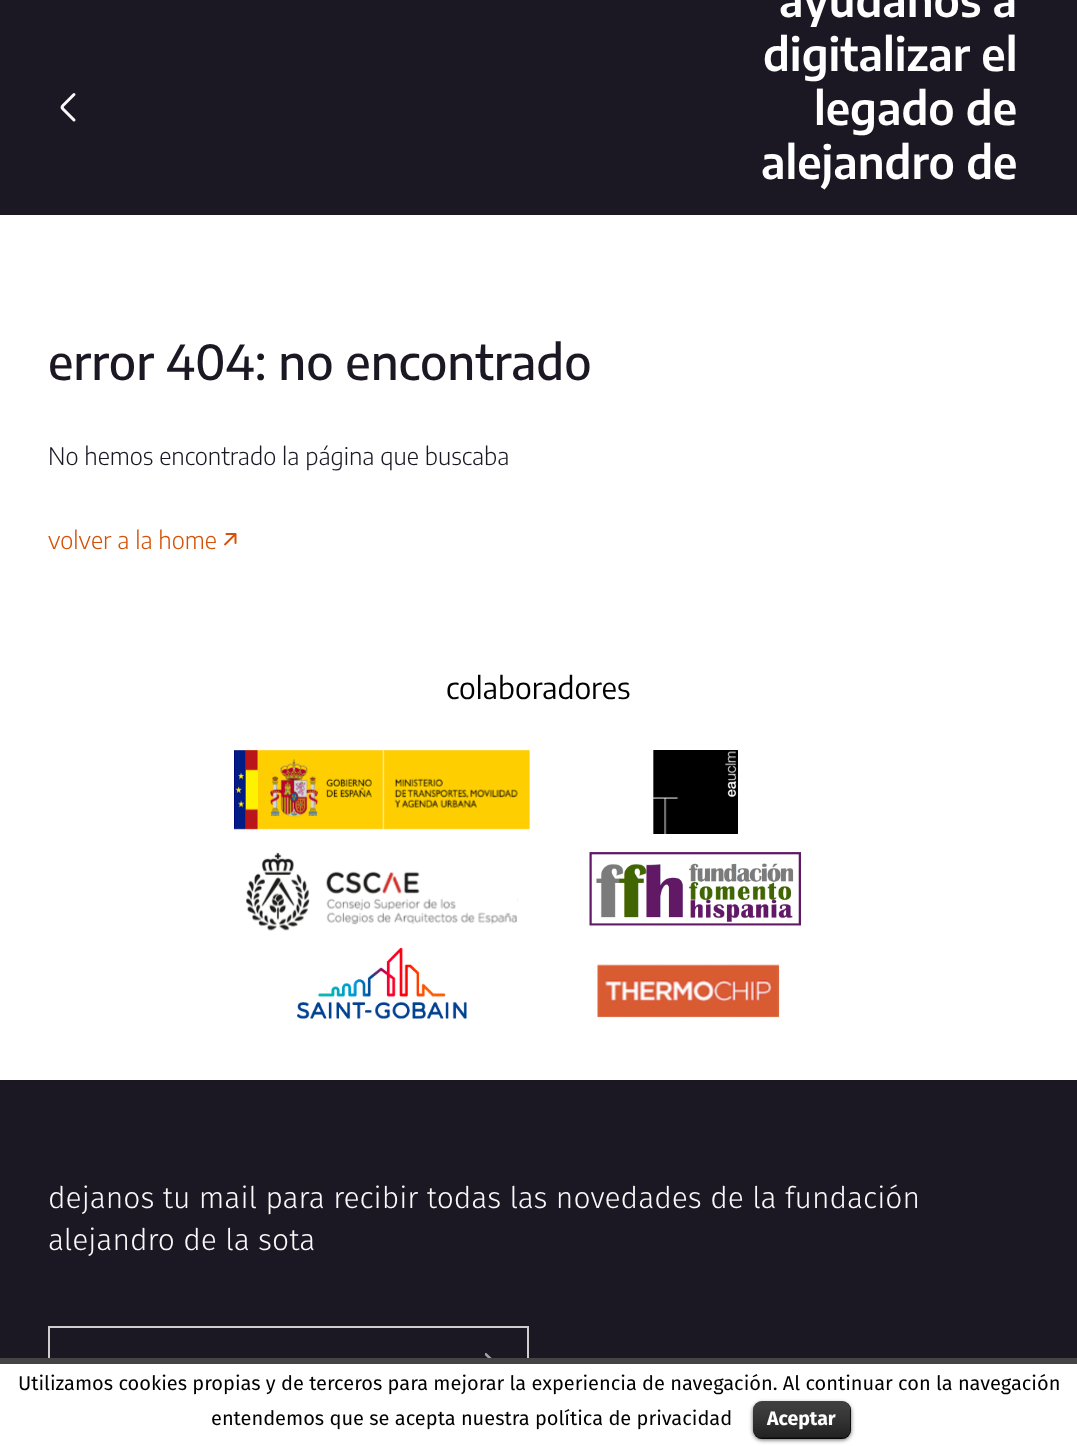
<svg xmlns="http://www.w3.org/2000/svg" xmlns:xlink="http://www.w3.org/1999/xlink" width="1077" height="1446" viewBox="0 0 1077 1446">
<style>
.cls-1{font:600 45px Encode Sans Condensed;fill:#ffffff}
.cls-2{font:500 48px Encode Sans Condensed;fill:#1b1824}
.cls-3{font:300 24px Encode Sans Condensed;fill:#1b1824}
.cls-4{font:300 24px Encode Sans Condensed;fill:#d55107}
.cls-5{font:30px Encode Sans Condensed;fill:#000000}
.cls-6{font:300 30px Fira Sans;fill:#f9f9f9}
.cls-7{font:20px Fira Sans;fill:#000000}
.cls-8{font:bold 19.5px Fira Sans;fill:#ffffff}
</style>
<defs>
<clipPath id="clip1"><rect x="485" y="1353" width="12" height="21"/></clipPath>
</defs>
<rect width="100%" height="100%" fill="#ffffff"/>
<rect fill="#1b1824" x="0" y="0" width="1077" height="215"/>
<path fill="none" stroke="#f9f9f9" stroke-width="3" stroke-linecap="round" d="M74 94.5L63 105.5C62 106.5 62 108 63 109L74 120"/>
<image xlink:href="image0.png" x="223" y="533" width="14" height="13"/>
<image xlink:href="image1.png" x="234" y="750" width="296" height="80"/>
<image xlink:href="image2.png" x="653" y="750" width="85" height="84"/>
<image xlink:href="image3.png" x="246" y="852" width="272" height="79"/>
<image xlink:href="image4.png" x="589" y="852" width="212" height="74"/>
<image xlink:href="image5.png" x="297" y="948" width="170" height="71"/>
<image xlink:href="image6.png" x="597" y="964" width="183" height="54"/>
<rect fill="#1b1824" x="0" y="1080" width="1077" height="278"/>
<rect fill="#d1cccd" x="48" y="1326" width="480" height="2"/>
<rect fill="#d1cccd" x="48" y="1326" width="2" height="32"/>
<rect fill="#d1cccd" x="527" y="1326" width="2" height="32"/>
<g clip-path="url(#clip1)">
<path fill="none" stroke="#a29fa8" stroke-width="2.5" stroke-linecap="round" d="M485.5 1374L495 1365.5C495.5 1364.5 495.5 1363.5 495 1363L485.5 1354"/>
</g>
<rect fill="#ffffff" x="485" y="1364" width="12" height="10"/>
<rect fill="#444444" x="0" y="1358" width="1077" height="6"/>
<rect fill="#000000" fill-opacity="0.6" filter="blur(2px)" x="753" y="1403" width="98" height="37" rx="9"/>
<rect fill="#000000" x="753" y="1401" width="98" height="38" rx="9"/>
<image xlink:href="image7.png" x="753" y="1401" width="98" height="38"/>
<rect fill="#000000" fill-opacity="0.25" x="758" y="1437" width="88" height="2"/>
<text class="cls-1" x="779" y="17">ayúdanos a</text>
<text class="cls-1" x="763" y="71">digitalizar el</text>
<text class="cls-1" x="814" y="125">legado de</text>
<text class="cls-1" x="761" y="179">alejandro de</text>
<text class="cls-2" x="48" y="380">error 404: no encontrado</text>
<text class="cls-3" x="48" y="465">No hemos encontrado la página que buscaba</text>
<text class="cls-4" x="48" y="549">volver a la home</text>
<text class="cls-5" x="446" y="699">colaboradores</text>
<text class="cls-6"><tspan x="48" y="1208">dejanos tu mail para recibir todas las novedades de la fundación</tspan><tspan x="48" y="1250">alejandro de la sota</tspan></text>
<text class="cls-7" x="18" y="1390">Utilizamos cookies propias y de terceros para mejorar la experiencia de navegación. Al continuar con la navegación</text>
<text class="cls-7" x="211" y="1425">entendemos que se acepta nuestra política de privacidad</text>
<text class="cls-8" x="767" y="1425">Aceptar</text>
</svg>
